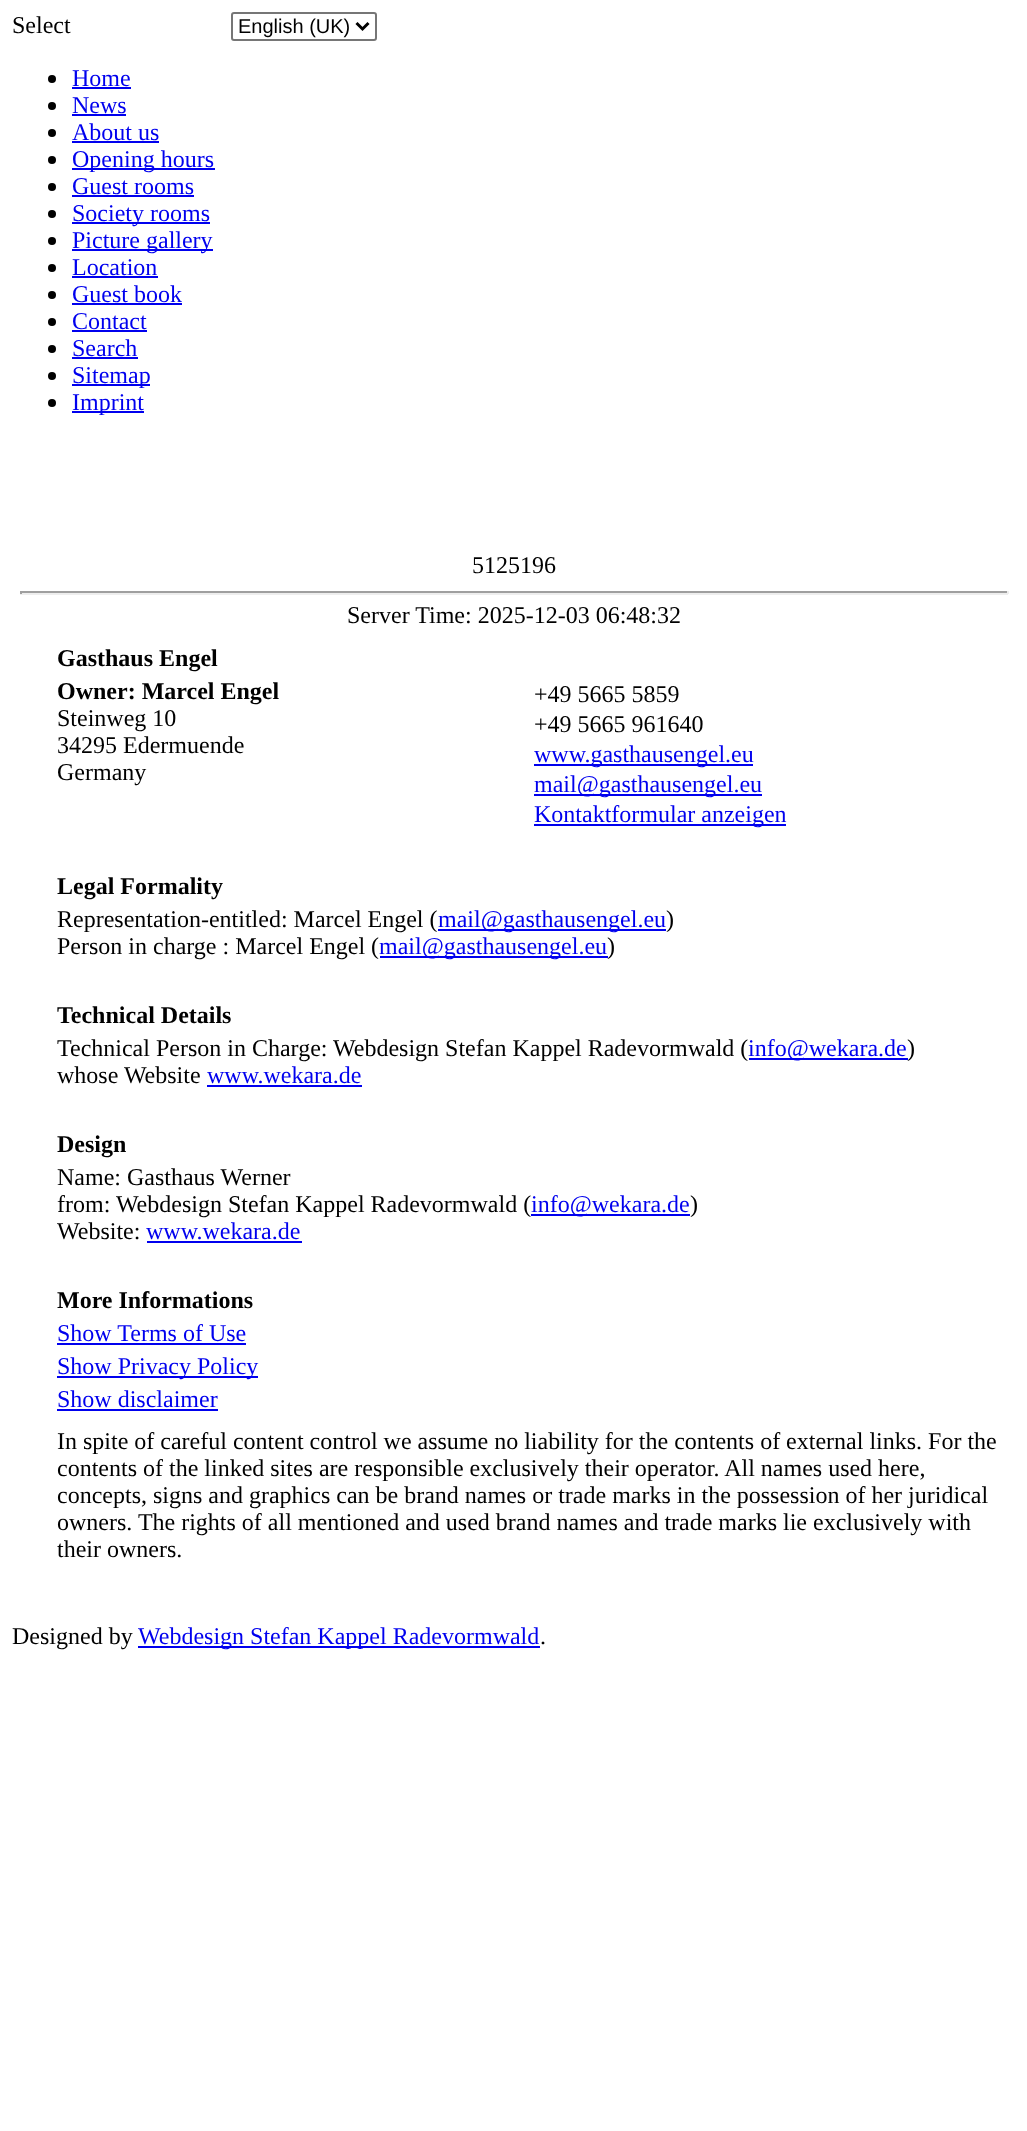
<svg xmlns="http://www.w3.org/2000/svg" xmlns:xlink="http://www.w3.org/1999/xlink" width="1027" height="2131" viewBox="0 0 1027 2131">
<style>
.cls-1{font:24px Liberation Serif;fill:#000000}
.cls-2{font:20px Liberation Sans;fill:#000000}
.cls-3{font:24px Liberation Serif;fill:#0000ee}
.cls-4{font:bold 24px Liberation Serif;fill:#000000}
</style>
<rect width="100%" height="100%" fill="#ffffff"/>
<rect fill="none" stroke="#767676" stroke-width="2" x="232" y="13" width="144" height="27" rx="2"/>
<path fill="none" stroke="#000000" stroke-width="3" d="M356.5 23L362.5 29L368.5 23"/>
<circle fill="#000000" cx="52" cy="79" r="4"/>
<rect fill="#0000ee" x="72" y="87" width="59" height="2"/>
<circle fill="#000000" cx="52" cy="106" r="4"/>
<rect fill="#0000ee" x="72" y="114" width="54" height="2"/>
<circle fill="#000000" cx="52" cy="133" r="4"/>
<rect fill="#0000ee" x="72" y="141" width="87" height="2"/>
<circle fill="#000000" cx="52" cy="160" r="4"/>
<rect fill="#0000ee" x="72" y="168" width="143" height="2"/>
<circle fill="#000000" cx="52" cy="187" r="4"/>
<rect fill="#0000ee" x="72" y="195" width="122" height="2"/>
<circle fill="#000000" cx="52" cy="214" r="4"/>
<rect fill="#0000ee" x="72" y="222" width="138" height="2"/>
<circle fill="#000000" cx="52" cy="241" r="4"/>
<rect fill="#0000ee" x="72" y="249" width="141" height="2"/>
<circle fill="#000000" cx="52" cy="268" r="4"/>
<rect fill="#0000ee" x="72" y="276" width="86" height="2"/>
<circle fill="#000000" cx="52" cy="295" r="4"/>
<rect fill="#0000ee" x="72" y="303" width="110" height="2"/>
<circle fill="#000000" cx="52" cy="322" r="4"/>
<rect fill="#0000ee" x="72" y="330" width="75" height="2"/>
<circle fill="#000000" cx="52" cy="349" r="4"/>
<rect fill="#0000ee" x="72" y="357" width="66" height="2"/>
<circle fill="#000000" cx="52" cy="376" r="4"/>
<rect fill="#0000ee" x="72" y="384" width="78" height="2"/>
<circle fill="#000000" cx="52" cy="403" r="4"/>
<rect fill="#0000ee" x="72" y="411" width="72" height="2"/>
<rect fill="#9f9f9f" x="20" y="591" width="988" height="2"/>
<rect fill="#eeeeee" x="1007" y="591" width="2" height="3"/>
<rect fill="#eeeeee" x="20" y="593" width="988" height="2"/>
<rect fill="#9f9f9f" x="20" y="591" width="2" height="3"/>
<rect fill="#0000ee" x="534" y="764" width="219" height="2"/>
<rect fill="#0000ee" x="534" y="794" width="228" height="2"/>
<rect fill="#0000ee" x="534" y="824" width="252" height="2"/>
<rect fill="#0000ee" x="438" y="929" width="228" height="2"/>
<rect fill="#0000ee" x="380" y="956" width="228" height="2"/>
<rect fill="#0000ee" x="749" y="1058" width="159" height="2"/>
<rect fill="#0000ee" x="207" y="1085" width="155" height="2"/>
<rect fill="#0000ee" x="531" y="1214" width="159" height="2"/>
<rect fill="#0000ee" x="147" y="1241" width="155" height="2"/>
<rect fill="#0000ee" x="57" y="1343" width="189" height="2"/>
<rect fill="#0000ee" x="57" y="1376" width="201" height="2"/>
<rect fill="#0000ee" x="57" y="1409" width="161" height="2"/>
<rect fill="#0000ee" x="138" y="1646" width="402" height="2"/>
<text class="cls-1" x="12" y="33">Select</text>
<text class="cls-2" x="238" y="33">English (UK)</text>
<text class="cls-3"><tspan x="72" y="86">Home</tspan><tspan x="72" y="113">News</tspan><tspan x="72" y="140">About us</tspan><tspan x="72" y="167">Opening hours</tspan><tspan x="72" y="194">Guest rooms</tspan><tspan x="72" y="221">Society rooms</tspan><tspan x="72" y="248">Picture gallery</tspan><tspan x="72" y="275">Location</tspan><tspan x="72" y="302">Guest book</tspan><tspan x="72" y="329">Contact</tspan><tspan x="72" y="356">Search</tspan><tspan x="72" y="383">Sitemap</tspan><tspan x="72" y="410">Imprint</tspan></text>
<text class="cls-1" x="472" y="573">5125196</text>
<text class="cls-1" x="347" y="623">Server Time: 2025-12-03 06:48:32</text>
<text class="cls-4"><tspan x="57" y="666">Gasthaus Engel</tspan><tspan x="57" y="699">Owner: Marcel Engel</tspan></text>
<text class="cls-1"><tspan x="57" y="726">Steinweg 10</tspan><tspan x="57" y="753">34295 Edermuende</tspan><tspan x="57" y="780">Germany</tspan></text>
<text class="cls-1"><tspan x="534" y="702">+49 5665 5859</tspan><tspan x="534" y="732">+49 5665 961640</tspan></text>
<text class="cls-3"><tspan x="534" y="762">www.gasthausengel.eu</tspan><tspan x="534" y="792">mail@gasthausengel.eu</tspan><tspan x="534" y="822">Kontaktformular anzeigen</tspan></text>
<text class="cls-4" x="57" y="894">Legal Formality</text>
<text class="cls-1" x="57" y="927">Representation-entitled: Marcel Engel (</text>
<text class="cls-3" x="438" y="927">mail@gasthausengel.eu</text>
<text class="cls-1" x="666" y="927">)</text>
<text class="cls-1" x="57" y="954">Person in charge : Marcel Engel (</text>
<text class="cls-3" x="379" y="954">mail@gasthausengel.eu</text>
<text class="cls-1" x="607" y="954">)</text>
<text class="cls-4" x="57" y="1023">Technical Details</text>
<text class="cls-1" x="57" y="1056">Technical Person in Charge: Webdesign Stefan Kappel Radevormwald (</text>
<text class="cls-3" x="748" y="1056">info@wekara.de</text>
<text class="cls-1" x="907" y="1056">)</text>
<text class="cls-1" x="57" y="1083">whose Website</text>
<text class="cls-3" x="207" y="1083">www.wekara.de</text>
<text class="cls-4" x="57" y="1152">Design</text>
<text class="cls-1"><tspan x="57" y="1185">Name: Gasthaus Werner</tspan><tspan x="57" y="1212">from: Webdesign Stefan Kappel Radevormwald (</tspan></text>
<text class="cls-3" x="531" y="1212">info@wekara.de</text>
<text class="cls-1" x="690" y="1212">)</text>
<text class="cls-1" x="57" y="1239">Website:</text>
<text class="cls-3" x="146" y="1239">www.wekara.de</text>
<text class="cls-4" x="57" y="1308">More Informations</text>
<text class="cls-3"><tspan x="57" y="1341">Show Terms of Use</tspan><tspan x="57" y="1374">Show Privacy Policy</tspan><tspan x="57" y="1407">Show disclaimer</tspan></text>
<text class="cls-1"><tspan x="57" y="1449">In spite of careful content control we assume no liability for the contents of external links. For the</tspan><tspan x="57" y="1476">contents of the linked sites are responsible exclusively their operator. All names used here,</tspan><tspan x="57" y="1503">concepts, signs and graphics can be brand names or trade marks in the possession of her juridical</tspan><tspan x="57" y="1530">owners. The rights of all mentioned and used brand names and trade marks lie exclusively with</tspan><tspan x="57" y="1557">their owners.</tspan></text>
<text class="cls-1" x="12" y="1644">Designed by</text>
<text class="cls-3" x="138" y="1644">Webdesign Stefan Kappel Radevormwald</text>
<text class="cls-1" x="540" y="1644">.</text>
</svg>
